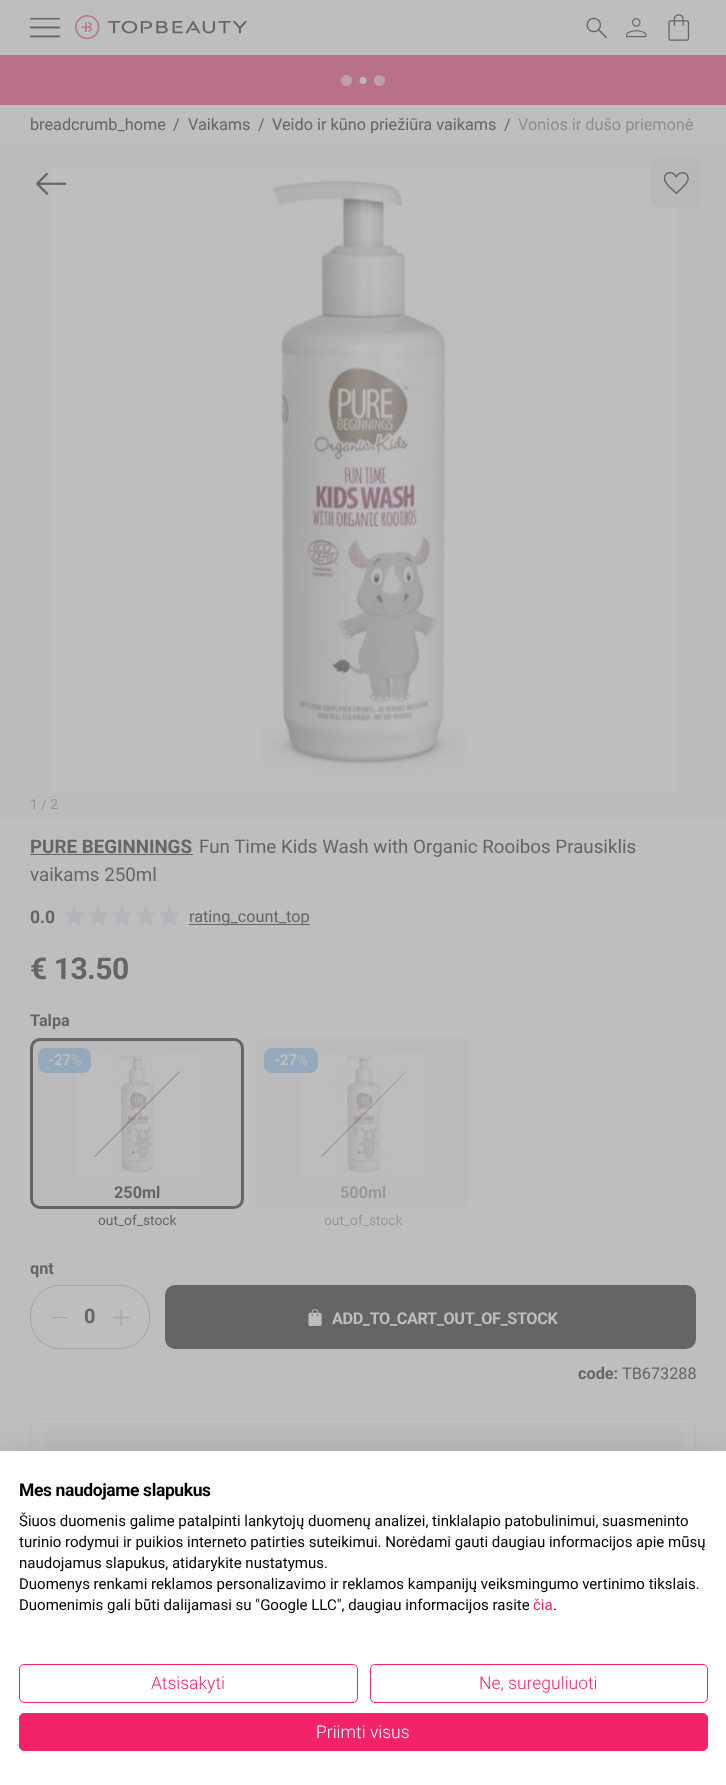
<svg xmlns="http://www.w3.org/2000/svg" xmlns:xlink="http://www.w3.org/1999/xlink" width="726" height="1785" viewBox="0 0 726 1785">
<style>
.cls-1{font:16.25px Roboto;fill:#656565}
.cls-2{font:16.25px Roboto;fill:#8a8d92}
.cls-3{font:13.75px Roboto;fill:#949398}
.cls-4{font:bold 18.75px Roboto;fill:#656565}
.cls-5{font:18.75px Roboto;fill:#656565}
.cls-6{font:bold 17.5px Roboto;fill:#656565}
.cls-7{font:bold 30px Roboto;letter-spacing:-0.5px;fill:#656565}
.cls-8{font:bold 16.25px Roboto;fill:#656565}
.cls-9{font:bold 15px Roboto;fill:#bebebe}
.cls-10{font:bold 15px Roboto;fill:#aeb6be}
.cls-11{font:13.75px Roboto;fill:#656565}
.cls-12{font:bold 16.25px Roboto;fill:#999999}
.cls-13{font:13.75px Roboto;fill:#999999}
.cls-14{font:bold 20px Roboto;fill:#656565}
.cls-15{font:bold 16.25px Roboto;letter-spacing:-0.4px;fill:#bebebe}
.cls-16{font:bold 17.5px Roboto;letter-spacing:-0.4px;fill:#000000}
.cls-17{font:15px Roboto;fill:#000000}
.cls-18{font:15px Roboto;fill:#f22467}
.cls-19{font:300 17.5px Roboto;fill:#f22467}
.cls-20{font:300 17.5px Roboto;fill:#ffffff}
</style>
<rect width="100%" height="100%" fill="#bebebe"/>
<image xlink:href="image0.png" x="30" y="18" width="30" height="20"/>
<image xlink:href="image1.png" x="75" y="15" width="173" height="25"/>
<image xlink:href="image2.png" x="586" y="17" width="22" height="22"/>
<image xlink:href="image3.png" x="626" y="18" width="21" height="20"/>
<image xlink:href="image4.png" x="668" y="14" width="22" height="27"/>
<rect fill="#b97189" x="0" y="55" width="726" height="50"/>
<circle fill="#bca1aa" cx="346.5" cy="80.5" r="5.5"/>
<circle fill="#bdb5b7" cx="363" cy="80.5" r="3.5"/>
<circle fill="#bca1aa" cx="379.5" cy="80.5" r="5.5"/>
<rect fill="#bcbbbc" x="0" y="143" width="726" height="675"/>
<image xlink:href="image6.png" x="51" y="168" width="625" height="625"/>
<rect fill="#b8b8b9" x="651" y="158" width="50" height="50" rx="10"/>
<image xlink:href="image5.png" x="664" y="172" width="25" height="23"/>
<image xlink:href="image7.png" x="36" y="173" width="31" height="22"/>
<rect fill="#656565" x="30" y="854" width="163" height="1"/>
<image xlink:href="image8.png" x="64" y="905" width="21" height="20"/>
<image xlink:href="image9.png" x="88" y="905" width="21" height="20"/>
<image xlink:href="image10.png" x="111" y="905" width="21" height="20"/>
<image xlink:href="image11.png" x="135" y="905" width="21" height="20"/>
<image xlink:href="image8.png" x="159" y="905" width="21" height="20"/>
<rect fill="#656565" x="189" y="924" width="121" height="1"/>
<rect fill="#bcbbbc" stroke="#656565" stroke-width="3" x="31.5" y="1039.5" width="211" height="168" rx="8.5"/>
<path fill="#bebebe" d="M94 1155L178 1070L179 1071L94 1156Z"/>
<path fill="#656565" d="M94 1156L179 1071L180 1072L95 1157Z"/>
<image xlink:href="image12.png" x="75" y="1053" width="125" height="124"/>
<rect fill="#7c9cbe" fill-opacity="0.6" x="38" y="1048" width="53" height="25" rx="8"/>
<rect fill="#bcbbbc" x="256" y="1038" width="214" height="171" rx="10"/>
<path fill="#bebebe" d="M320 1155L405 1070L406 1071L321 1156Z"/>
<path fill="#656565" d="M321 1156L406 1071V1072L322 1157Z"/>
<image xlink:href="image13.png" x="301" y="1053" width="125" height="124"/>
<rect fill="#7c9cbe" fill-opacity="0.6" x="264" y="1048" width="54" height="25" rx="8"/>
<rect fill="none" stroke="#a4a4aa" x="30.5" y="1285.5" width="119" height="63" rx="29.5"/>
<rect fill="#a4a4aa" x="51" y="1317" width="16" height="1"/>
<image xlink:href="image14.png" x="113" y="1309" width="17" height="17"/>
<rect fill="#656565" x="165" y="1285" width="531" height="64" rx="10"/>
<image xlink:href="image15.png" x="308" y="1309" width="14" height="17"/>
<rect fill="none" stroke="#b8b8bc" x="30.5" y="1418.5" width="665" height="151" rx="9.5"/>
<rect fill="#bcbbbc" x="44" y="1431" width="639" height="20"/>
<rect fill="#000000" fill-opacity="0.1" filter="blur(15px)" x="0" y="1451" width="726" height="334"/>
<rect fill="#ffffff" x="0" y="1451" width="726" height="334"/>
<rect fill="none" stroke="#f22467" x="19.5" y="1664.5" width="338" height="38" rx="4.5"/>
<rect fill="none" stroke="#f22467" x="370.5" y="1664.5" width="337" height="38" rx="4.5"/>
<rect fill="#f22467" stroke="#f22467" x="19.5" y="1713.5" width="688" height="37" rx="4.5"/>
<text class="cls-1" x="30" y="130">breadcrumb_home</text>
<text class="cls-1" x="173" y="130">/</text>
<text class="cls-1" x="188" y="130">Vaikams</text>
<text class="cls-1" x="258" y="130">/</text>
<text class="cls-1" x="272" y="130">Veido ir kūno priežiūra vaikams</text>
<text class="cls-1" x="504" y="130">/</text>
<text class="cls-2" x="518" y="130">Vonios ir dušo priemonė</text>
<text class="cls-3" x="30" y="809">1 / 2</text>
<text class="cls-4" x="30" y="853">PURE BEGINNINGS</text>
<text class="cls-5" x="199" y="853">Fun Time Kids Wash with Organic Rooibos Prausiklis</text>
<text class="cls-5" x="30" y="881">vaikams 250ml</text>
<text class="cls-6" x="30" y="923">0.0</text>
<text class="cls-1" x="189" y="922">rating_count_top</text>
<text class="cls-7" x="30" y="979">€ 13.50</text>
<text class="cls-8" x="30" y="1026">Talpa</text>
<text class="cls-9" x="48" y="1065">-27</text>
<text class="cls-10" x="71" y="1065">%</text>
<text class="cls-8" x="114" y="1198">250ml</text>
<text class="cls-11" x="98" y="1225">out_of_stock</text>
<text class="cls-9" x="274" y="1065">-27</text>
<text class="cls-10" x="297" y="1065">%</text>
<text class="cls-12" x="340" y="1198">500ml</text>
<text class="cls-13" x="324" y="1225">out_of_stock</text>
<text class="cls-8" x="30" y="1274">qnt</text>
<text class="cls-14" x="84" y="1323">0</text>
<text class="cls-15" x="332" y="1324">ADD_TO_CART_OUT_OF_STOCK</text>
<text class="cls-8" x="578" y="1379">code:</text>
<text class="cls-1" x="622" y="1379">TB673288</text>
<text class="cls-16" x="19" y="1496">Mes naudojame slapukus</text>
<text class="cls-17"><tspan x="19" y="1526">Šiuos duomenis galime patalpinti lankytojų duomenų analizei, tinklalapio patobulinimui, suasmeninto</tspan><tspan x="19" y="1547">turinio rodymui ir puikios interneto patirties suteikimui. Norėdami gauti daugiau informacijos apie mūsų</tspan><tspan x="19" y="1568">naudojamus slapukus, atidarykite nustatymus.</tspan><tspan x="19" y="1589">Duomenys renkami reklamos personalizavimo ir reklamos kampanijų veiksmingumo vertinimo tikslais.</tspan><tspan x="19" y="1610">Duomenimis gali būti dalijamasi su "Google LLC", daugiau informacijos rasite</tspan></text>
<text class="cls-18" x="533" y="1610">čia</text>
<text class="cls-17" x="553" y="1610">.</text>
<text class="cls-19" x="151" y="1689">Atsisakyti</text>
<text class="cls-19" x="479" y="1689">Ne, sureguliuoti</text>
<text class="cls-20" x="316" y="1738">Priimti visus</text>
</svg>
